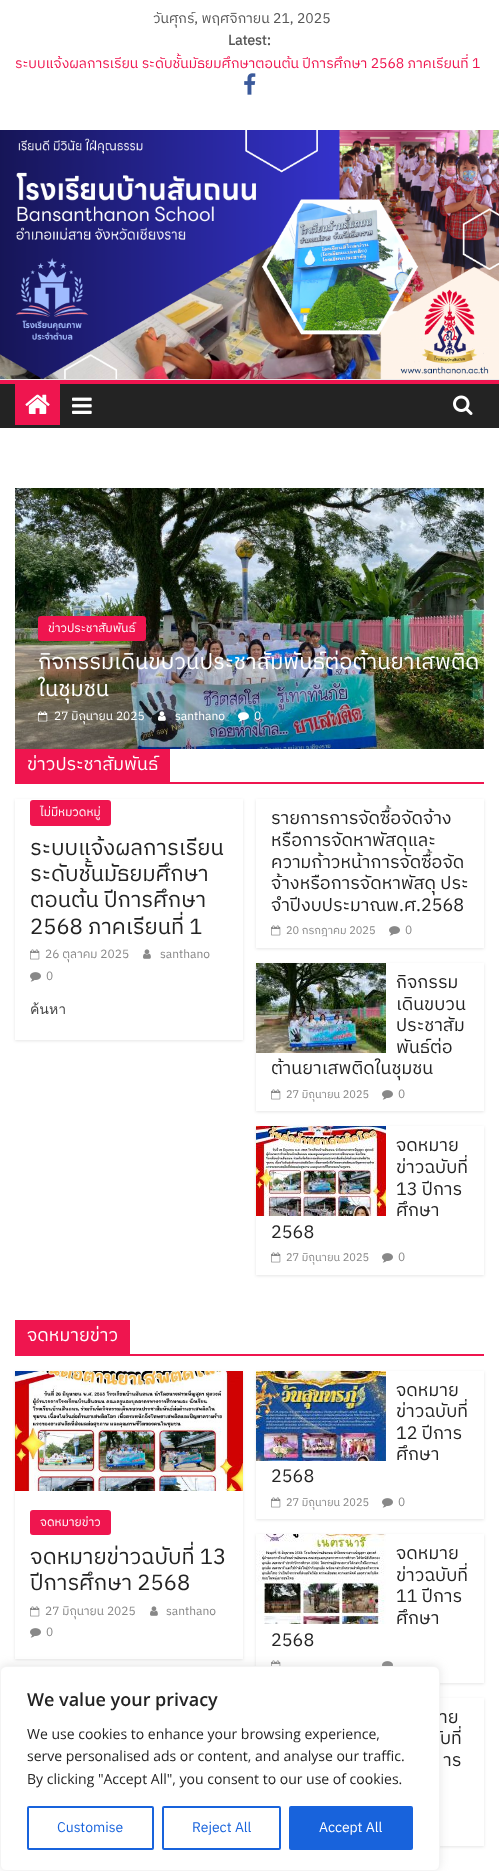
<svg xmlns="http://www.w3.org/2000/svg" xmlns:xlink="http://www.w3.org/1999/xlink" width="499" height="1871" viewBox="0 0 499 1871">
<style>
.cls-1{font:14px IBM Plex Sans Thai;fill:#555555}
.cls-2{font:bold 14px IBM Plex Sans Thai;fill:#555555}
.cls-3{font:14px IBM Plex Sans Thai;fill:#ef154f}
.cls-4{font:12px IBM Plex Sans Thai;fill:#ffffff}
.cls-5{font:22px IBM Plex Sans Thai;fill:#ffffff}
.cls-6{font:18px IBM Plex Sans Thai;fill:#ffffff}
.cls-7{font:22px IBM Plex Sans Thai;fill:#232323}
.cls-8{font:12px IBM Plex Sans Thai;fill:#888888}
.cls-9{font:14px Loma;fill:#444444}
.cls-10{font:18px IBM Plex Sans Thai;fill:#232323}
.cls-11{font:11px IBM Plex Sans Thai;fill:#888888}
.cls-12{font:600 18px Open Sans;fill:#232323}
.cls-13{font:14px Open Sans;fill:#232323}
.cls-14{font:14px IBM Plex Sans Thai;fill:#1863dc}
.cls-15{font:14px IBM Plex Sans Thai;fill:#ffffff}
</style>
<defs>
<linearGradient id="g1" gradientUnits="userSpaceOnUse" x1="249" y1="615" x2="249" y2="749"><stop offset="0" stop-color="#000000" stop-opacity="0"/><stop offset="1" stop-color="#000000" stop-opacity="0.3"/></linearGradient>
<clipPath id="clip1"><path d="M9 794H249V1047H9ZM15 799H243V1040H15Z" clip-rule="evenodd"/></clipPath>
<clipPath id="clip2"><path d="M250 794H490V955H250ZM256 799H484V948H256Z" clip-rule="evenodd"/></clipPath>
<clipPath id="clip3"><path d="M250 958H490V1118H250ZM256 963H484V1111H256Z" clip-rule="evenodd"/></clipPath>
<clipPath id="clip4"><path d="M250 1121H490V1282H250ZM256 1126H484V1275H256Z" clip-rule="evenodd"/></clipPath>
<clipPath id="clip5"><path d="M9 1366H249V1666H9ZM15 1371H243V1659H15Z" clip-rule="evenodd"/></clipPath>
<clipPath id="clip6"><path d="M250 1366H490V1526H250ZM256 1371H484V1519H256Z" clip-rule="evenodd"/></clipPath>
<clipPath id="clip7"><path d="M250 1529H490V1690H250ZM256 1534H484V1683H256Z" clip-rule="evenodd"/></clipPath>
<clipPath id="clip8"><path d="M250 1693H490V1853H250ZM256 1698H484V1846H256Z" clip-rule="evenodd"/></clipPath>
</defs>
<rect width="100%" height="100%" fill="#ffffff"/>
<image xlink:href="image0.png" x="244" y="73" width="12" height="22"/>
<image xlink:href="image1.png" x="0" y="130" width="499" height="249"/>
<rect fill="#eaeaea" x="0" y="379" width="499" height="1"/>
<rect fill="#232323" x="0" y="384" width="499" height="44"/>
<rect fill="#ef154f" x="0" y="380" width="499" height="4"/>
<rect fill="#ef154f" x="15" y="384" width="45" height="41"/>
<image xlink:href="image2.png" x="25" y="394" width="25" height="20"/>
<image xlink:href="image3.png" x="72" y="397" width="20" height="17"/>
<image xlink:href="image4.png" x="453" y="395" width="20" height="20"/>
<image xlink:href="image5.png" x="15" y="488" width="469" height="261"/>
<rect fill="url(#g1)" x="15" y="625" width="469" height="124"/>
<rect fill="#ef154f" x="38" y="616" width="108" height="25" rx="3"/>
<image xlink:href="image6.png" x="37" y="711" width="11" height="11"/>
<image xlink:href="image7.png" x="158" y="711" width="8" height="10"/>
<image xlink:href="image8.png" x="238" y="712" width="11" height="10"/>
<image xlink:href="image9.png" x="483" y="488" width="1" height="261"/>
<rect fill="#ef154f" x="15" y="782" width="469" height="2"/>
<rect fill="#ef154f" x="15" y="749" width="155" height="33"/>
<g clip-path="url(#clip1)">
<rect fill="#000000" fill-opacity="0.1" filter="blur(1.5px)" x="15" y="800" width="228" height="241"/>
</g>
<rect fill="#ef154f" x="30" y="800" width="81" height="26" rx="3"/>
<image xlink:href="image10.png" x="30" y="949" width="10" height="11"/>
<image xlink:href="image11.png" x="143" y="949" width="8" height="10"/>
<image xlink:href="image12.png" x="30" y="972" width="11" height="10"/>
<g clip-path="url(#clip2)">
<rect fill="#000000" fill-opacity="0.1" filter="blur(1.5px)" x="256" y="800" width="228" height="149"/>
</g>
<image xlink:href="image10.png" x="271" y="925" width="10" height="11"/>
<image xlink:href="image12.png" x="389" y="926" width="11" height="10"/>
<g clip-path="url(#clip3)">
<rect fill="#000000" fill-opacity="0.1" filter="blur(1.5px)" x="256" y="964" width="228" height="148"/>
</g>
<image xlink:href="image13.png" x="256" y="963" width="130" height="90"/>
<image xlink:href="image10.png" x="271" y="1089" width="10" height="11"/>
<image xlink:href="image12.png" x="382" y="1090" width="11" height="10"/>
<g clip-path="url(#clip4)">
<rect fill="#000000" fill-opacity="0.1" filter="blur(1.5px)" x="256" y="1127" width="228" height="149"/>
</g>
<image xlink:href="image14.png" x="256" y="1126" width="130" height="90"/>
<image xlink:href="image10.png" x="271" y="1252" width="10" height="11"/>
<image xlink:href="image12.png" x="382" y="1253" width="11" height="10"/>
<rect fill="#ef154f" x="15" y="1354" width="469" height="2"/>
<rect fill="#ef154f" x="15" y="1320" width="115" height="34"/>
<g clip-path="url(#clip5)">
<rect fill="#000000" fill-opacity="0.1" filter="blur(1.5px)" x="15" y="1372" width="228" height="288"/>
</g>
<image xlink:href="image15.png" x="15" y="1371" width="228" height="120"/>
<rect fill="#ef154f" x="30" y="1510" width="81" height="25" rx="3"/>
<image xlink:href="image10.png" x="30" y="1606" width="10" height="11"/>
<image xlink:href="image11.png" x="150" y="1606" width="8" height="10"/>
<image xlink:href="image12.png" x="30" y="1628" width="11" height="10"/>
<g clip-path="url(#clip6)">
<rect fill="#000000" fill-opacity="0.1" filter="blur(1.5px)" x="256" y="1372" width="228" height="148"/>
</g>
<image xlink:href="image16.png" x="256" y="1371" width="130" height="90"/>
<image xlink:href="image10.png" x="271" y="1497" width="10" height="11"/>
<image xlink:href="image12.png" x="382" y="1498" width="11" height="10"/>
<g clip-path="url(#clip7)">
<rect fill="#000000" fill-opacity="0.1" filter="blur(1.5px)" x="256" y="1535" width="228" height="149"/>
</g>
<image xlink:href="image17.png" x="256" y="1534" width="130" height="90"/>
<image xlink:href="image18.png" x="271" y="1660" width="10" height="6"/>
<image xlink:href="image19.png" x="382" y="1661" width="11" height="5"/>
<g clip-path="url(#clip8)">
<rect fill="#000000" fill-opacity="0.1" filter="blur(1.5px)" x="256" y="1699" width="228" height="148"/>
</g>
<rect fill="#acabab" fill-opacity="0.3" filter="blur(5px)" x="0" y="1665" width="440" height="205" rx="6"/>
<text class="cls-1" x="153" y="23">วันศุกร์, พฤศจิกายน 21, 2025</text>
<text class="cls-2" x="228" y="45">Latest:</text>
<text class="cls-3" x="15" y="68">ระบบแจ้งผลการเรียน ระดับชั้นมัธยมศึกษาตอนต้น ปีการศึกษา 2568 ภาคเรียนที่ 1</text>
<text class="cls-4" x="48" y="632">ข่าวประชาสัมพันธ์</text>
<text class="cls-5"><tspan x="38" y="669">กิจกรรมเดินขบวนประชาสัมพันธ์ต่อต้านยาเสพติด</tspan><tspan x="38" y="696">ในชุมชน</tspan></text>
<text class="cls-4" x="54" y="720">27 มิถุนายน 2025</text>
<text class="cls-4" x="175" y="720">santhano</text>
<text class="cls-4" x="254" y="720">0</text>
<text class="cls-6" x="27" y="770">ข่าวประชาสัมพันธ์</text>
<text class="cls-4" x="40" y="816">ไม่มีหมวดหมู่</text>
<text class="cls-7"><tspan x="30" y="855">ระบบแจ้งผลการเรียน</tspan><tspan x="30" y="881">ระดับชั้นมัธยมศึกษา</tspan><tspan x="30" y="907">ตอนต้น ปีการศึกษา</tspan><tspan x="30" y="934">2568 ภาคเรียนที่ 1</tspan></text>
<text class="cls-8" x="45" y="958">26 ตุลาคม 2025</text>
<text class="cls-8" x="160" y="958">santhano</text>
<text class="cls-8" x="46" y="980">0</text>
<text class="cls-9" x="30" y="1014">ค้นหา</text>
<text class="cls-10"><tspan x="271" y="824">รายการการจัดซื้อจัดจ้าง</tspan><tspan x="271" y="846">หรือการจัดหาพัสดุและ</tspan><tspan x="271" y="868">ความก้าวหน้าการจัดซื้อจัด</tspan><tspan x="271" y="889">จ้างหรือการจัดหาพัสดุ ประ</tspan><tspan x="271" y="911">จําปีงบประมาณพ.ศ.2568</tspan></text>
<text class="cls-11" x="286" y="934">20 กรกฎาคม 2025</text>
<text class="cls-8" x="405" y="934">0</text>
<text class="cls-10"><tspan x="396" y="988">กิจกรรม</tspan><tspan x="396" y="1010">เดินขบวน</tspan><tspan x="396" y="1031">ประชาสัม</tspan><tspan x="396" y="1053">พันธ์ต่อ</tspan></text>
<text class="cls-10" x="271" y="1074">ต้านยาเสพติดในชุมชน</text>
<text class="cls-11" x="286" y="1098">27 มิถุนายน 2025</text>
<text class="cls-8" x="398" y="1098">0</text>
<text class="cls-10"><tspan x="396" y="1151">จดหมาย</tspan><tspan x="396" y="1173">ข่าวฉบับที่</tspan><tspan x="396" y="1195">13 ปีการ</tspan><tspan x="396" y="1216">ศึกษา</tspan></text>
<text class="cls-10" x="271" y="1238">2568</text>
<text class="cls-11" x="286" y="1261">27 มิถุนายน 2025</text>
<text class="cls-8" x="398" y="1261">0</text>
<text class="cls-6" x="27" y="1341">จดหมายข่าว</text>
<text class="cls-4" x="40" y="1526">จดหมายข่าว</text>
<text class="cls-7"><tspan x="30" y="1564">จดหมายข่าวฉบับที่ 13</tspan><tspan x="30" y="1590">ปีการศึกษา 2568</tspan></text>
<text class="cls-8" x="45" y="1615">27 มิถุนายน 2025</text>
<text class="cls-8" x="166" y="1615">santhano</text>
<text class="cls-8" x="46" y="1636">0</text>
<text class="cls-10"><tspan x="396" y="1396">จดหมาย</tspan><tspan x="396" y="1417">ข่าวฉบับที่</tspan><tspan x="396" y="1439">12 ปีการ</tspan><tspan x="396" y="1460">ศึกษา</tspan></text>
<text class="cls-10" x="271" y="1482">2568</text>
<text class="cls-11" x="286" y="1506">27 มิถุนายน 2025</text>
<text class="cls-8" x="398" y="1506">0</text>
<text class="cls-10"><tspan x="396" y="1559">จดหมาย</tspan><tspan x="396" y="1581">ข่าวฉบับที่</tspan><tspan x="396" y="1602">11 ปีการ</tspan><tspan x="396" y="1624">ศึกษา</tspan></text>
<text class="cls-10" x="271" y="1646">2568</text>
<text class="cls-10" x="439" y="1723">าย</text>
<text class="cls-10" x="440" y="1744">ับที่</text>
<text class="cls-10" x="443" y="1766">าร</text>
<rect fill="#ffffff" stroke="#f4f4f4" x="0.5" y="1666.5" width="439" height="204" rx="5.5"/>
<text class="cls-12" x="27" y="1706">We value your privacy</text>
<text class="cls-13"><tspan x="27" y="1739">We use cookies to enhance your browsing experience,</tspan><tspan x="27" y="1761">serve personalised ads or content, and analyse our traffic.</tspan><tspan x="27" y="1784">By clicking "Accept All", you consent to our use of cookies.</tspan></text>
<rect fill="none" stroke="#1863dc" stroke-width="2" x="28" y="1807" width="125" height="42" rx="1"/>
<text class="cls-14" x="57" y="1832">Customise</text>
<rect fill="none" stroke="#1863dc" stroke-width="2" x="163" y="1807" width="117" height="42" rx="1"/>
<text class="cls-14" x="192" y="1832">Reject All</text>
<rect fill="#1863dc" stroke="#1863dc" stroke-width="2" x="290" y="1807" width="122" height="42" rx="1"/>
<text class="cls-15" x="319" y="1832">Accept All</text>
</svg>
